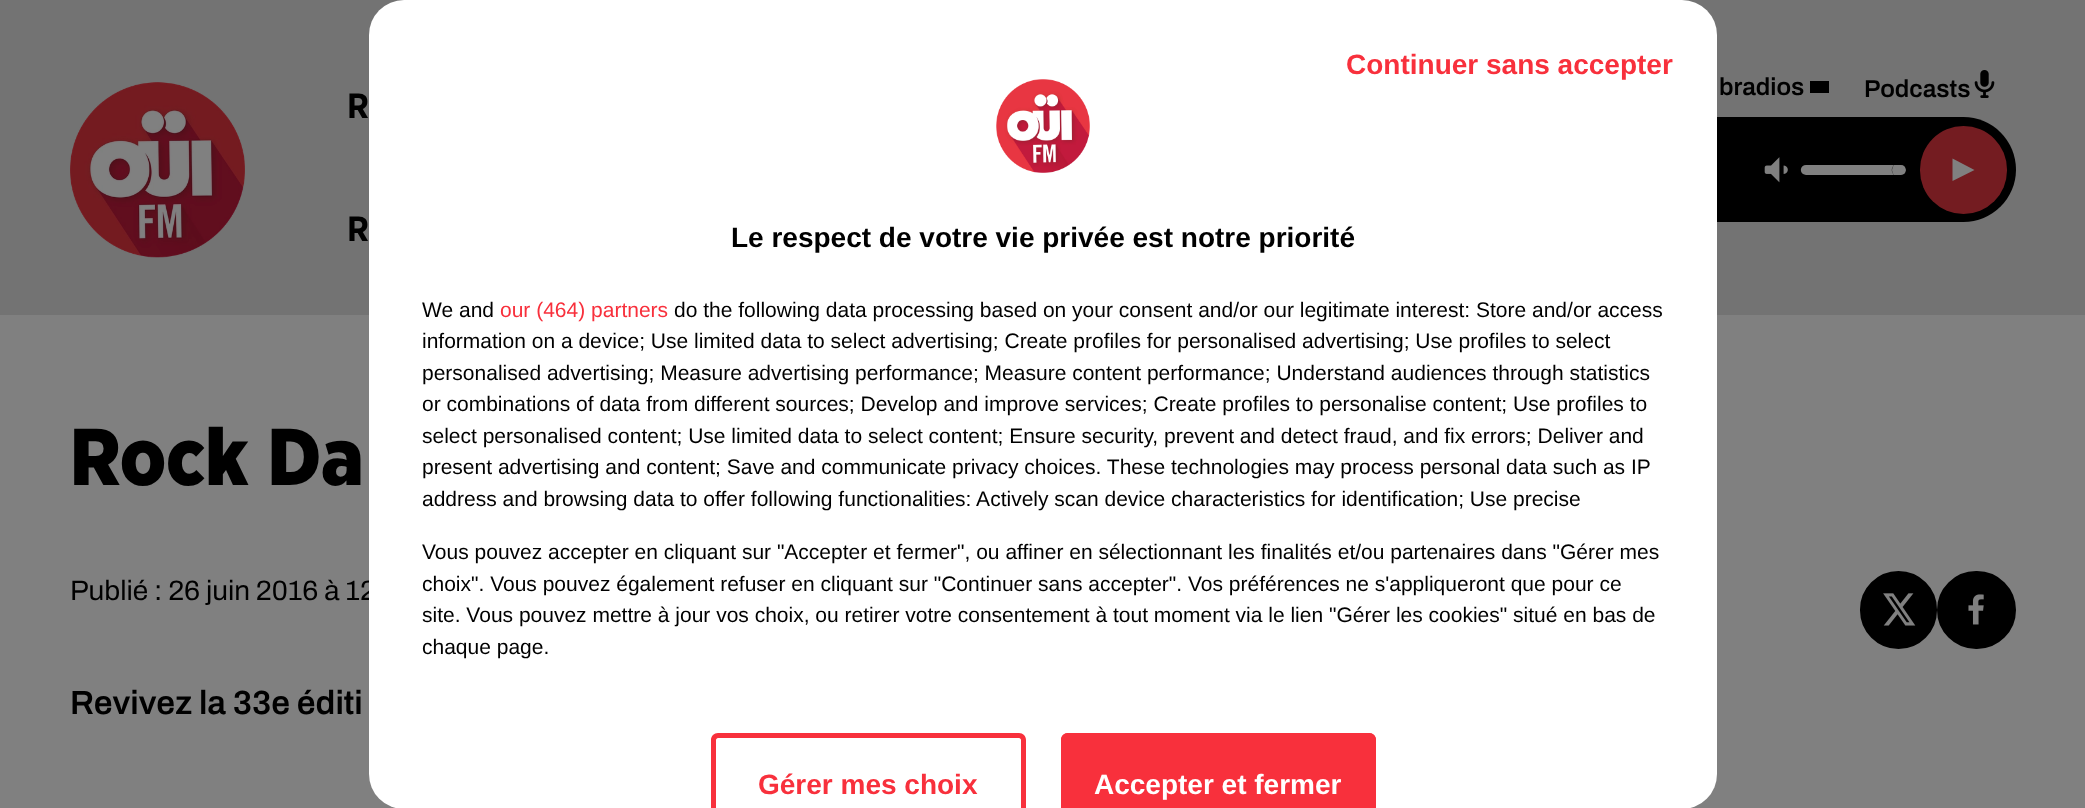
<svg xmlns="http://www.w3.org/2000/svg" xmlns:xlink="http://www.w3.org/1999/xlink" width="2085" height="808" viewBox="0 0 2085 808">
<style>
.cls-1{font:bold 35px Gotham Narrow;fill:#000000}
.cls-2{font:600 24.5px Archivo;fill:#000000}
.cls-3{font:900 80.5px Gotham Narrow;fill:#000000}
.cls-4{font:28px Archivo;fill:#000000}
.cls-5{font:bold 28px Liberation Sans;fill:#f8303c}
.cls-6{font:21px Liberation Sans;fill:#000000}
.cls-7{font:21px Liberation Sans;fill:#f8303c}
.cls-8{font:bold 28px Liberation Sans;fill:#ffffff}
.cls-9{font:bold 28px Liberation Sans;fill:#000000}
.cls-10{font:600 33.5px Archivo;fill:#000000}
</style>
<defs>
<clipPath id="clip1"><rect x="1801" y="165" width="105" height="10" rx="5"/></clipPath>
</defs>
<rect width="100%" height="100%" fill="#808080"/>
<rect fill="#737373" x="0" y="0" width="2085" height="315"/>
<image xlink:href="image1.png" x="70" y="82" width="175" height="176"/>
<rect fill="#000000" x="1810" y="81" width="19" height="12"/>
<image xlink:href="image2.png" x="1974" y="70" width="21" height="28"/>
<rect fill="#000000" x="1351" y="117" width="665" height="105" rx="52.5"/>
<image xlink:href="image3.png" x="1764" y="157" width="24" height="26"/>
<rect fill="#1a1a1a" x="1801" y="165" width="105" height="10" rx="5"/>
<path fill="#808080" d="M1806 165C1801 165 1799 171 1803 174L1806 175H1894C1891 172 1891 168 1894 165Z"/>
<g clip-path="url(#clip1)">
<circle fill="#808080" cx="1899" cy="170" r="7"/>
</g>
<rect fill="#741c21" x="1920" y="126" width="87" height="88" rx="43.5"/>
<path fill="#808080" d="M1974.5 170L1952.5 181V158.5Z"/>
<rect fill="#000000" stroke="#000000" stroke-width="4" x="1862" y="573" width="73" height="74" rx="36.5"/>
<image xlink:href="image4.png" x="1883" y="593" width="33" height="33"/>
<rect fill="#000000" stroke="#000000" stroke-width="4" x="1939" y="573" width="75" height="74" rx="37"/>
<image xlink:href="image5.png" x="1968" y="594" width="16" height="31"/>
<text class="cls-1" x="347" y="118">R</text>
<text class="cls-1" x="347" y="241">R</text>
<text class="cls-2" x="1719" y="95">bradios</text>
<text class="cls-2" x="1864" y="97">Podcasts</text>
<text class="cls-3" x="70" y="485">Rock Da</text>
<text class="cls-4" x="70" y="600">Publié : 26 juin 2016 à 12</text>
<rect fill="#ffffff" x="369" y="0" width="1348" height="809" rx="35"/>
<text class="cls-5" x="1346" y="74">Continuer sans accepter</text>
<text class="cls-6" x="422" y="506">address and browsing data to offer following functionalities: Actively scan device characteristics for identification; Use precise</text>
<text class="cls-6" x="422" y="474">present advertising and content; Save and communicate privacy choices. These technologies may process personal data such as IP</text>
<text class="cls-6" x="422" y="443">select personalised content; Use limited data to select content; Ensure security, prevent and detect fraud, and fix errors; Deliver and</text>
<text class="cls-6" x="422" y="411">or combinations of data from different sources; Develop and improve services; Create profiles to personalise content; Use profiles to</text>
<text class="cls-6" x="422" y="380">personalised advertising; Measure advertising performance; Measure content performance; Understand audiences through statistics</text>
<text class="cls-6" x="422" y="348">information on a device; Use limited data to select advertising; Create profiles for personalised advertising; Use profiles to select</text>
<text class="cls-6" x="674" y="317">do the following data processing based on your consent and/or our legitimate interest: Store and/or access</text>
<text class="cls-7" x="500" y="317">our (464) partners</text>
<text class="cls-6" x="422" y="317">We and</text>
<path fill="#f8303c" d="M1068 733H1369C1373 733 1376 736 1376 740V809H1061V740C1061 736 1064 733 1068 733Z"/>
<path fill="#f8303c" d="M1068 733C1064 733 1061 736 1061 740V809H1066V740C1066 739 1067 738 1068 738H1369C1370 738 1371 739 1371 740V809H1376V740C1376 736 1373 733 1369 733Z"/>
<text class="cls-8" x="1094" y="794">Accepter et fermer</text>
<path fill="#f8303c" d="M718 733C714 733 711 736 711 740V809H716V740C716 739 717 738 718 738H1019C1020 738 1021 739 1021 740V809H1026V740C1026 736 1023 733 1019 733Z"/>
<text class="cls-5" x="758" y="794">Gérer mes choix</text>
<text class="cls-6" x="422" y="654">chaque page.</text>
<text class="cls-6" x="422" y="622">site. Vous pouvez mettre à jour vos choix, ou retirer votre consentement à tout moment via le lien "Gérer les cookies" situé en bas de</text>
<text class="cls-6" x="422" y="591">choix". Vous pouvez également refuser en cliquant sur "Continuer sans accepter". Vos préférences ne s'appliqueront que pour ce</text>
<text class="cls-6" x="422" y="559">Vous pouvez accepter en cliquant sur "Accepter et fermer", ou affiner en sélectionnant les finalités et/ou partenaires dans "Gérer mes</text>
<text class="cls-9" x="731" y="247">Le respect de votre vie privée est notre priorité</text>
<image xlink:href="image0.png" x="996" y="79" width="94" height="94"/>
<text class="cls-10" x="70" y="714">Revivez la 33e éditi</text>
</svg>
